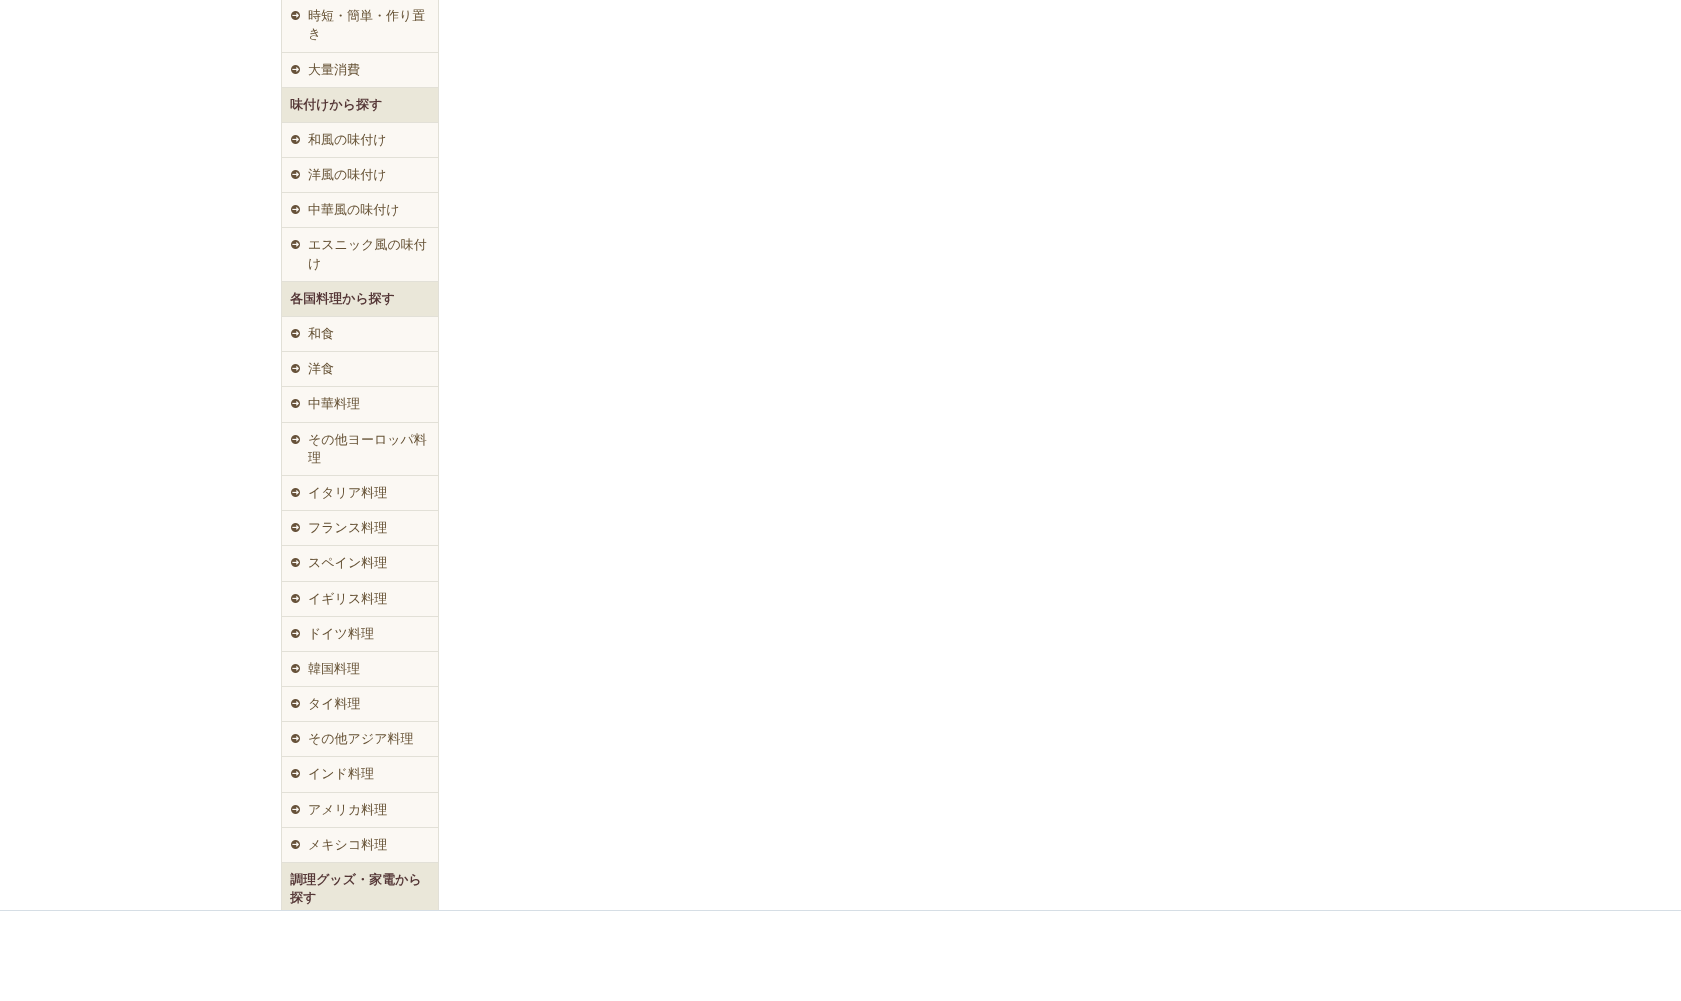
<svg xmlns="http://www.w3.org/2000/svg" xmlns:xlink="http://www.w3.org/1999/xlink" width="1681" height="1001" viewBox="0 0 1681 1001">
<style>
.cls-1{font:500 13px WenQuanYi Zen Hei;fill:#655134}
.cls-2{font:bold 13px WenQuanYi Zen Hei;fill:#543636}
</style>
<rect width="100%" height="100%" fill="#ffffff"/>
<rect fill="#fbf8f3" x="282" y="0" width="156" height="862"/>
<rect fill="none" stroke="#e2e0d7" x="281.5" y="-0.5" width="157" height="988"/>
<image xlink:href="image0.png" x="291" y="11" width="9" height="9"/>
<rect fill="#e2e0d7" x="282" y="52" width="156" height="1"/>
<image xlink:href="image0.png" x="291" y="65" width="9" height="9"/>
<rect fill="#e2e0d7" x="282" y="87" width="156" height="1"/>
<rect fill="#eae7d9" x="282" y="88" width="156" height="34"/>
<rect fill="#e2e0d7" x="282" y="122" width="156" height="1"/>
<image xlink:href="image0.png" x="291" y="135" width="9" height="9"/>
<rect fill="#e2e0d7" x="282" y="157" width="156" height="1"/>
<image xlink:href="image0.png" x="291" y="170" width="9" height="9"/>
<rect fill="#e2e0d7" x="282" y="192" width="156" height="1"/>
<image xlink:href="image0.png" x="291" y="205" width="9" height="9"/>
<rect fill="#e2e0d7" x="282" y="227" width="156" height="1"/>
<image xlink:href="image0.png" x="291" y="240" width="9" height="9"/>
<rect fill="#e2e0d7" x="282" y="281" width="156" height="1"/>
<rect fill="#eae7d9" x="282" y="282" width="156" height="34"/>
<rect fill="#e2e0d7" x="282" y="316" width="156" height="1"/>
<image xlink:href="image0.png" x="291" y="329" width="9" height="9"/>
<rect fill="#e2e0d7" x="282" y="351" width="156" height="1"/>
<image xlink:href="image0.png" x="291" y="364" width="9" height="9"/>
<rect fill="#e2e0d7" x="282" y="386" width="156" height="1"/>
<image xlink:href="image0.png" x="291" y="399" width="9" height="9"/>
<rect fill="#e2e0d7" x="282" y="422" width="156" height="1"/>
<image xlink:href="image0.png" x="291" y="435" width="9" height="9"/>
<rect fill="#e2e0d7" x="282" y="475" width="156" height="1"/>
<image xlink:href="image0.png" x="291" y="488" width="9" height="9"/>
<rect fill="#e2e0d7" x="282" y="510" width="156" height="1"/>
<image xlink:href="image0.png" x="291" y="523" width="9" height="9"/>
<rect fill="#e2e0d7" x="282" y="545" width="156" height="1"/>
<image xlink:href="image0.png" x="291" y="558" width="9" height="9"/>
<rect fill="#e2e0d7" x="282" y="581" width="156" height="1"/>
<image xlink:href="image0.png" x="291" y="594" width="9" height="9"/>
<rect fill="#e2e0d7" x="282" y="616" width="156" height="1"/>
<image xlink:href="image0.png" x="291" y="629" width="9" height="9"/>
<rect fill="#e2e0d7" x="282" y="651" width="156" height="1"/>
<image xlink:href="image0.png" x="291" y="664" width="9" height="9"/>
<rect fill="#e2e0d7" x="282" y="686" width="156" height="1"/>
<image xlink:href="image0.png" x="291" y="699" width="9" height="9"/>
<rect fill="#e2e0d7" x="282" y="721" width="156" height="1"/>
<image xlink:href="image0.png" x="291" y="734" width="9" height="9"/>
<rect fill="#e2e0d7" x="282" y="756" width="156" height="1"/>
<image xlink:href="image0.png" x="291" y="769" width="9" height="9"/>
<rect fill="#e2e0d7" x="282" y="792" width="156" height="1"/>
<image xlink:href="image0.png" x="291" y="805" width="9" height="9"/>
<rect fill="#e2e0d7" x="282" y="827" width="156" height="1"/>
<image xlink:href="image0.png" x="291" y="840" width="9" height="9"/>
<rect fill="#e2e0d7" x="282" y="862" width="156" height="1"/>
<rect fill="#eae7d9" x="282" y="863" width="156" height="47"/>
<rect fill="#ffffff" x="281" y="911" width="158" height="77"/>
<rect fill="#d6dee5" x="0" y="910" width="1681" height="1"/>
<text class="cls-1"><tspan x="308" y="20">時短・簡単・作り置</tspan><tspan x="308" y="38">き</tspan></text>
<text class="cls-1" x="308" y="74">大量消費</text>
<text class="cls-2" x="290" y="109">味付けから探す</text>
<text class="cls-1" x="308" y="144">和風の味付け</text>
<text class="cls-1" x="308" y="179">洋風の味付け</text>
<text class="cls-1" x="308" y="214">中華風の味付け</text>
<text class="cls-1"><tspan x="308" y="249">エスニック風の味付</tspan><tspan x="308" y="268">け</tspan></text>
<text class="cls-2" x="290" y="303">各国料理から探す</text>
<text class="cls-1" x="308" y="338">和食</text>
<text class="cls-1" x="308" y="373">洋食</text>
<text class="cls-1" x="308" y="408">中華料理</text>
<text class="cls-1"><tspan x="308" y="444">その他ヨーロッパ料</tspan><tspan x="308" y="462">理</tspan></text>
<text class="cls-1" x="308" y="497">イタリア料理</text>
<text class="cls-1" x="308" y="532">フランス料理</text>
<text class="cls-1" x="308" y="567">スペイン料理</text>
<text class="cls-1" x="308" y="603">イギリス料理</text>
<text class="cls-1" x="308" y="638">ドイツ料理</text>
<text class="cls-1" x="308" y="673">韓国料理</text>
<text class="cls-1" x="308" y="708">タイ料理</text>
<text class="cls-1" x="308" y="743">その他アジア料理</text>
<text class="cls-1" x="308" y="778">インド料理</text>
<text class="cls-1" x="308" y="814">アメリカ料理</text>
<text class="cls-1" x="308" y="849">メキシコ料理</text>
<text class="cls-2"><tspan x="290" y="884">調理グッズ・家電から</tspan><tspan x="290" y="902">探す</tspan></text>
</svg>
